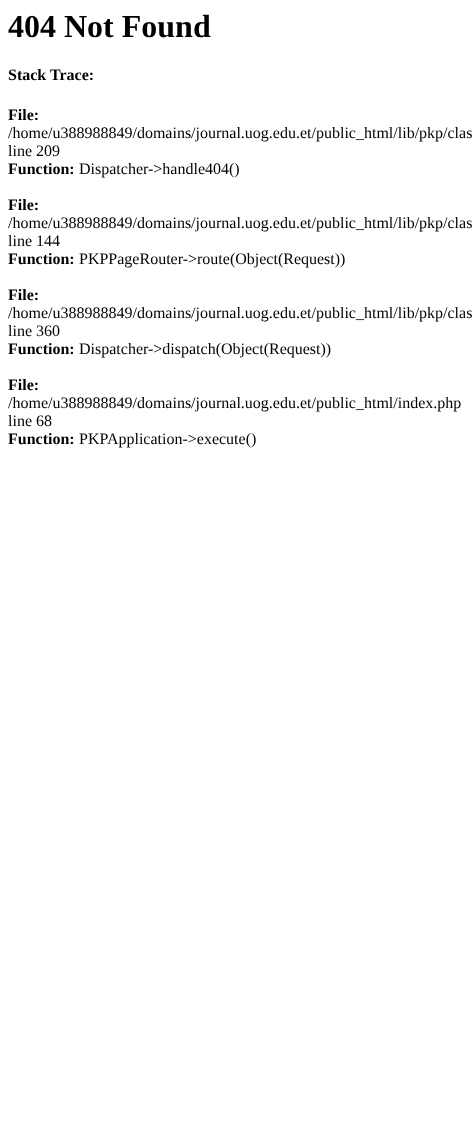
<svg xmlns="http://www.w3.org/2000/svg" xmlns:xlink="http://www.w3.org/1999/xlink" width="475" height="1144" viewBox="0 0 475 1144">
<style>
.cls-1{font:bold 32px Liberation Serif;fill:#000000}
.cls-2{font:bold 16px Liberation Serif;fill:#000000}
.cls-3{font:16px Liberation Serif;fill:#000000}
</style>
<rect width="100%" height="100%" fill="#ffffff"/>
<text class="cls-1" x="8" y="37">404 Not Found</text>
<text class="cls-2" x="8" y="80">Stack Trace:</text>
<text class="cls-2" x="8" y="120">File:</text>
<text class="cls-3"><tspan x="8" y="138">/home/u388988849/domains/journal.uog.edu.et/public_html/lib/pkp/clas</tspan><tspan x="8" y="156">line 209</tspan></text>
<text class="cls-2" x="8" y="174">Function:</text>
<text class="cls-3" x="79" y="174">Dispatcher-&gt;handle404()</text>
<text class="cls-2" x="8" y="210">File:</text>
<text class="cls-3"><tspan x="8" y="228">/home/u388988849/domains/journal.uog.edu.et/public_html/lib/pkp/clas</tspan><tspan x="8" y="246">line 144</tspan></text>
<text class="cls-2" x="8" y="264">Function:</text>
<text class="cls-3" x="79" y="264">PKPPageRouter-&gt;route(Object(Request))</text>
<text class="cls-2" x="8" y="300">File:</text>
<text class="cls-3"><tspan x="8" y="318">/home/u388988849/domains/journal.uog.edu.et/public_html/lib/pkp/clas</tspan><tspan x="8" y="336">line 360</tspan></text>
<text class="cls-2" x="8" y="354">Function:</text>
<text class="cls-3" x="79" y="354">Dispatcher-&gt;dispatch(Object(Request))</text>
<text class="cls-2" x="8" y="390">File:</text>
<text class="cls-3"><tspan x="8" y="408">/home/u388988849/domains/journal.uog.edu.et/public_html/index.php</tspan><tspan x="8" y="426">line 68</tspan></text>
<text class="cls-2" x="8" y="444">Function:</text>
<text class="cls-3" x="79" y="444">PKPApplication-&gt;execute()</text>
</svg>
